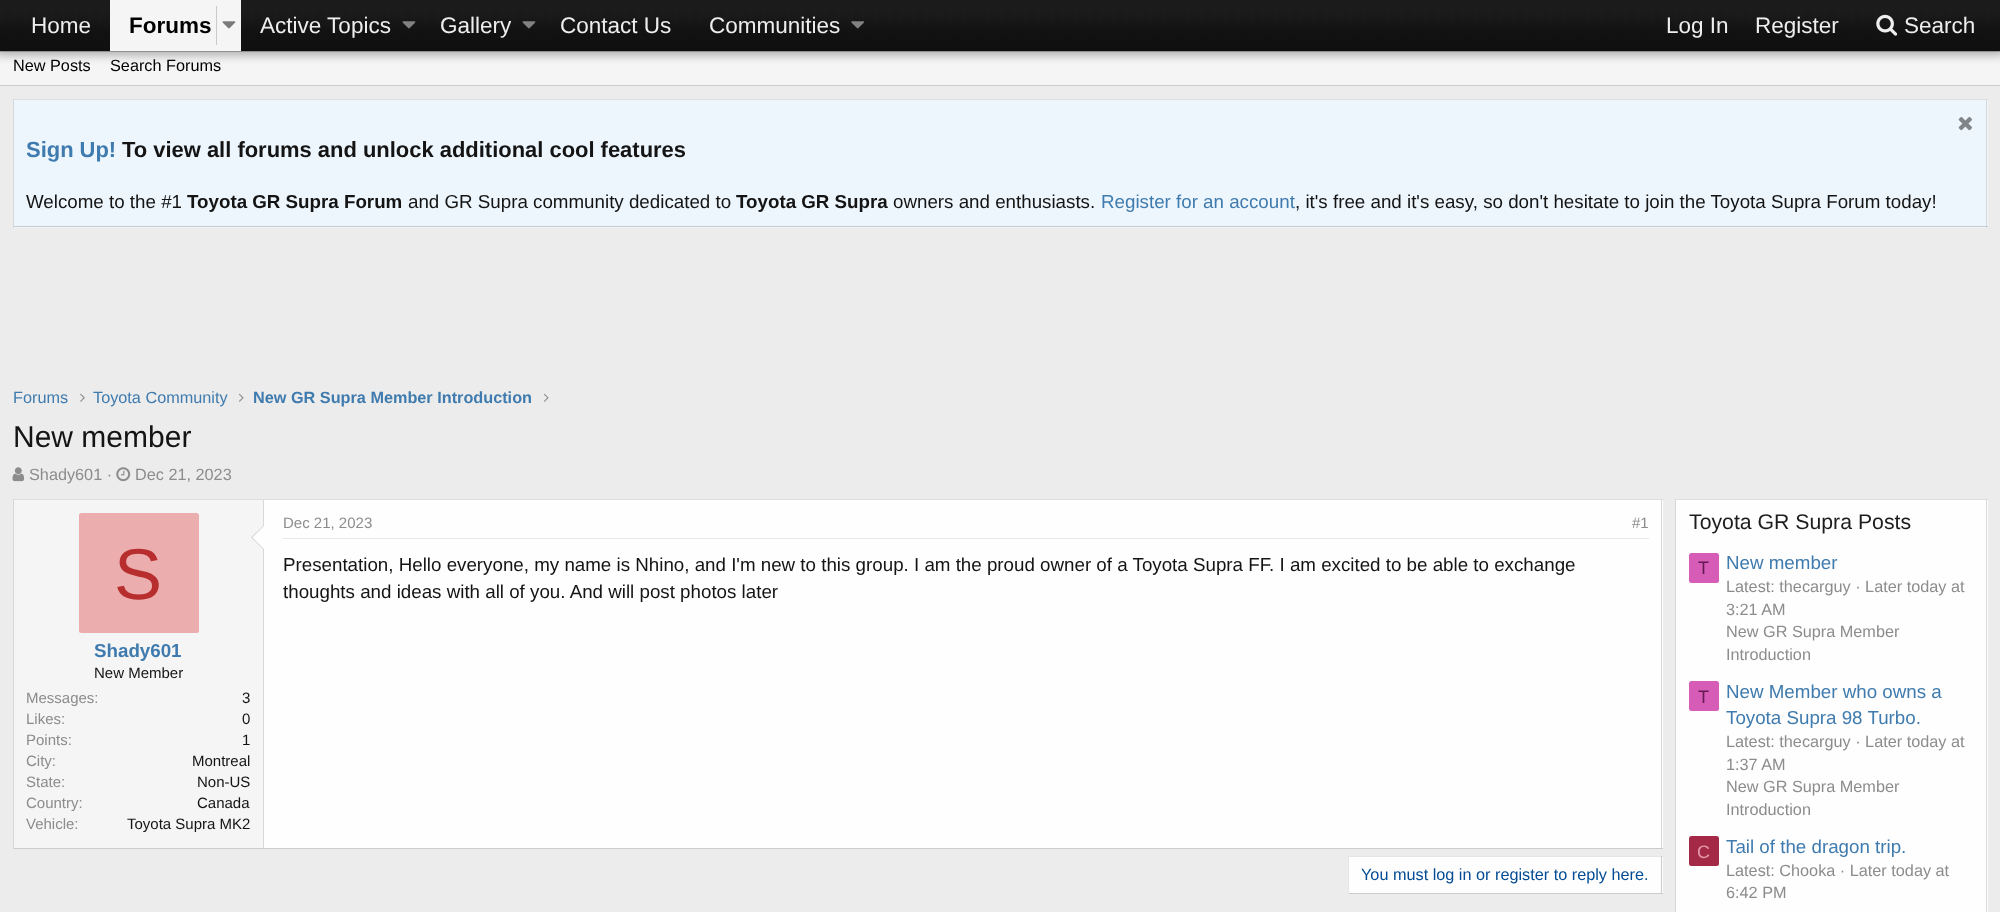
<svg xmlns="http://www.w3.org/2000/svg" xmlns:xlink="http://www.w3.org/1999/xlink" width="2000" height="912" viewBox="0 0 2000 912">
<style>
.cls-1{font:22.5px Liberation Sans;fill:#eeeeee}
.cls-2{font:bold 22.5px Liberation Sans;fill:#000000}
.cls-3{font:16.25px Liberation Sans;fill:#000000}
.cls-4{font:bold 21.95px Liberation Sans;fill:#3f7bae}
.cls-5{font:bold 21.95px Liberation Sans;fill:#141414}
.cls-6{font:18.75px Liberation Sans;fill:#141414}
.cls-7{font:bold 18.75px Liberation Sans;fill:#141414}
.cls-8{font:18.75px Liberation Sans;fill:#3f7bae}
.cls-9{font:16.25px Liberation Sans;fill:#3f7bae}
.cls-10{font:bold 16.25px Liberation Sans;fill:#3f7bae}
.cls-11{font:30px Liberation Sans;fill:#141414}
.cls-12{font:16.25px Liberation Sans;fill:#8c8c8c}
.cls-13{font:72px Liberation Sans;fill:#b82e2e}
.cls-14{font:bold 18.75px Liberation Sans;fill:#3f7bae}
.cls-15{font:15px Liberation Sans;fill:#141414}
.cls-16{font:15px Liberation Sans;fill:#8c8c8c}
.cls-17{font:16.25px Liberation Sans;fill:#004b94}
.cls-18{font:21.25px Liberation Sans;fill:#1d1d1d}
.cls-19{font:18px Liberation Sans;fill:#661a53}
.cls-20{font:18px Liberation Sans;fill:#e699ac}
</style>
<rect width="100%" height="100%" fill="#ececec"/>
<rect fill="#f5f5f5" x="0" y="51" width="2000" height="34"/>
<rect fill="#000000" fill-opacity="0.3" filter="blur(5px)" x="-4" y="-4" width="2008" height="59"/>
<image xlink:href="image0.png" x="0" y="0" width="2000" height="52"/>
<rect fill="#f5f5f5" x="110" y="0" width="131" height="51"/>
<rect fill="#cacaca" x="216" y="6" width="1" height="39"/>
<image xlink:href="image1.png" x="222" y="21" width="14" height="8"/>
<image xlink:href="image2.png" x="402" y="21" width="14" height="8"/>
<image xlink:href="image3.png" x="522" y="21" width="14" height="8"/>
<image xlink:href="image4.png" x="851" y="21" width="13" height="8"/>
<image xlink:href="image5.png" x="1876" y="14" width="22" height="22"/>
<rect fill="#cbcbcb" x="0" y="85" width="2000" height="1"/>
<rect fill="#edf6fd" x="14" y="100" width="1974" height="128"/>
<rect fill="#dfdfdf" x="13" y="99" width="1975" height="1"/>
<rect fill="#d8d8d8" x="1986" y="99" width="1" height="129"/>
<rect fill="#cbcbcb" x="13" y="226" width="1975" height="1"/>
<rect fill="#d8d8d8" x="13" y="99" width="1" height="129"/>
<image xlink:href="image6.png" x="1958" y="117" width="14" height="14"/>
<image xlink:href="image7.png" x="80" y="393" width="5" height="9"/>
<image xlink:href="image8.png" x="238" y="393" width="6" height="9"/>
<image xlink:href="image8.png" x="543" y="393" width="6" height="9"/>
<image xlink:href="image9.png" x="12" y="467" width="13" height="15"/>
<image xlink:href="image10.png" x="116" y="467" width="15" height="15"/>
<rect fill="#fefefe" x="264" y="500" width="1399" height="348"/>
<rect fill="#dfdfdf" x="13" y="499" width="1650" height="1"/>
<rect fill="#d8d8d8" x="1661" y="499" width="1" height="350"/>
<rect fill="#cbcbcb" x="13" y="848" width="1650" height="1"/>
<rect fill="#d8d8d8" x="13" y="499" width="1" height="350"/>
<rect fill="#f5f5f5" x="14" y="500" width="249" height="348"/>
<rect fill="#d8d8d8" x="263" y="500" width="1" height="348"/>
<path fill="#d8d8d8" d="M264 525V550L251 537.5Z"/>
<path fill="#fefefe" d="M264 526V549L252.5 537.5Z"/>
<rect fill="#ebadad" x="79" y="513" width="120" height="120" rx="2.5"/>
<rect fill="#e7e7e7" x="283" y="538" width="1366" height="1"/>
<rect fill="#fefefe" x="1349" y="857" width="314" height="36"/>
<rect fill="#e5e5e5" x="1348" y="856" width="315" height="1"/>
<rect fill="#cbcbcb" x="1661" y="856" width="1" height="38"/>
<rect fill="#cbcbcb" x="1348" y="893" width="315" height="1"/>
<rect fill="#e5e5e5" x="1348" y="856" width="1" height="38"/>
<rect fill="#fefefe" x="1676" y="500" width="312" height="412"/>
<rect fill="#dfdfdf" x="1675" y="499" width="313" height="1"/>
<rect fill="#d8d8d8" x="1986" y="499" width="1" height="413"/>
<rect fill="#d8d8d8" x="1675" y="499" width="1" height="413"/>
<rect fill="#d65cb8" x="1689" y="553" width="30" height="30" rx="2.5"/>
<rect fill="#d65cb8" x="1689" y="681" width="30" height="30" rx="2.5"/>
<rect fill="#a32947" x="1689" y="836" width="30" height="30" rx="2.5"/>
<text class="cls-1" x="31" y="33">Home</text>
<text class="cls-2" x="129" y="33">Forums</text>
<text class="cls-1" x="260" y="33">Active Topics</text>
<text class="cls-1" x="440" y="33">Gallery</text>
<text class="cls-1" x="560" y="33">Contact Us</text>
<text class="cls-1" x="709" y="33">Communities</text>
<text class="cls-1" x="1666" y="33">Log In</text>
<text class="cls-1" x="1755" y="33">Register</text>
<text class="cls-1" x="1904" y="33">Search</text>
<text class="cls-3" x="13" y="71">New Posts</text>
<text class="cls-3" x="110" y="71">Search Forums</text>
<text class="cls-4" x="26" y="157">Sign Up!</text>
<text class="cls-5" x="122" y="157">To view all forums and unlock additional cool features</text>
<text class="cls-6" x="26" y="208">Welcome to the #1</text>
<text class="cls-7" x="187" y="208">Toyota GR Supra Forum</text>
<text class="cls-6" x="408" y="208">and GR Supra community dedicated to</text>
<text class="cls-7" x="736" y="208">Toyota GR Supra</text>
<text class="cls-6" x="893" y="208">owners and enthusiasts.</text>
<text class="cls-8" x="1101" y="208">Register for an account</text>
<text class="cls-6" x="1295" y="208">, it's free and it's easy, so don't hesitate to join the Toyota Supra Forum today!</text>
<text class="cls-9" x="13" y="403">Forums</text>
<text class="cls-9" x="93" y="403">Toyota Community</text>
<text class="cls-10" x="253" y="403">New GR Supra Member Introduction</text>
<text class="cls-11" x="13" y="447">New member</text>
<text class="cls-12" x="29" y="480">Shady601 ·</text>
<text class="cls-12" x="135" y="480">Dec 21, 2023</text>
<text class="cls-13" x="114" y="599">S</text>
<text class="cls-14" x="94" y="657">Shady601</text>
<text class="cls-15" x="94" y="678">New Member</text>
<text class="cls-16" x="26" y="703">Messages:</text>
<text class="cls-15" x="242" y="703">3</text>
<text class="cls-16" x="26" y="724">Likes:</text>
<text class="cls-15" x="242" y="724">0</text>
<text class="cls-16" x="26" y="745">Points:</text>
<text class="cls-15" x="242" y="745">1</text>
<text class="cls-16" x="26" y="766">City:</text>
<text class="cls-15" x="192" y="766">Montreal</text>
<text class="cls-16" x="26" y="787">State:</text>
<text class="cls-15" x="197" y="787">Non-US</text>
<text class="cls-16" x="26" y="808">Country:</text>
<text class="cls-15" x="197" y="808">Canada</text>
<text class="cls-16" x="26" y="829">Vehicle:</text>
<text class="cls-15" x="127" y="829">Toyota Supra MK2</text>
<text class="cls-16" x="283" y="528">Dec 21, 2023</text>
<text class="cls-16" x="1632" y="528">#1</text>
<text class="cls-6"><tspan x="283" y="571">Presentation, Hello everyone, my name is Nhino, and I'm new to this group. I am the proud owner of a Toyota Supra FF. I am excited to be able to exchange</tspan><tspan x="283" y="598">thoughts and ideas with all of you. And will post photos later</tspan></text>
<text class="cls-17" x="1361" y="880">You must log in or register to reply here.</text>
<text class="cls-18" x="1689" y="529">Toyota GR Supra Posts</text>
<text class="cls-19" x="1698" y="574">T</text>
<text class="cls-8" x="1726" y="569">New member</text>
<text class="cls-12"><tspan x="1726" y="592">Latest: thecarguy · Later today at</tspan><tspan x="1726" y="615">3:21 AM</tspan><tspan x="1726" y="637">New GR Supra Member</tspan><tspan x="1726" y="660">Introduction</tspan></text>
<text class="cls-19" x="1698" y="703">T</text>
<text class="cls-8"><tspan x="1726" y="698">New Member who owns a</tspan><tspan x="1726" y="724">Toyota Supra 98 Turbo.</tspan></text>
<text class="cls-12"><tspan x="1726" y="747">Latest: thecarguy · Later today at</tspan><tspan x="1726" y="770">1:37 AM</tspan><tspan x="1726" y="792">New GR Supra Member</tspan><tspan x="1726" y="815">Introduction</tspan></text>
<text class="cls-20" x="1697" y="858">C</text>
<text class="cls-8" x="1726" y="853">Tail of the dragon trip.</text>
<text class="cls-12"><tspan x="1726" y="876">Latest: Chooka · Later today at</tspan><tspan x="1726" y="898">6:42 PM</tspan></text>
</svg>
